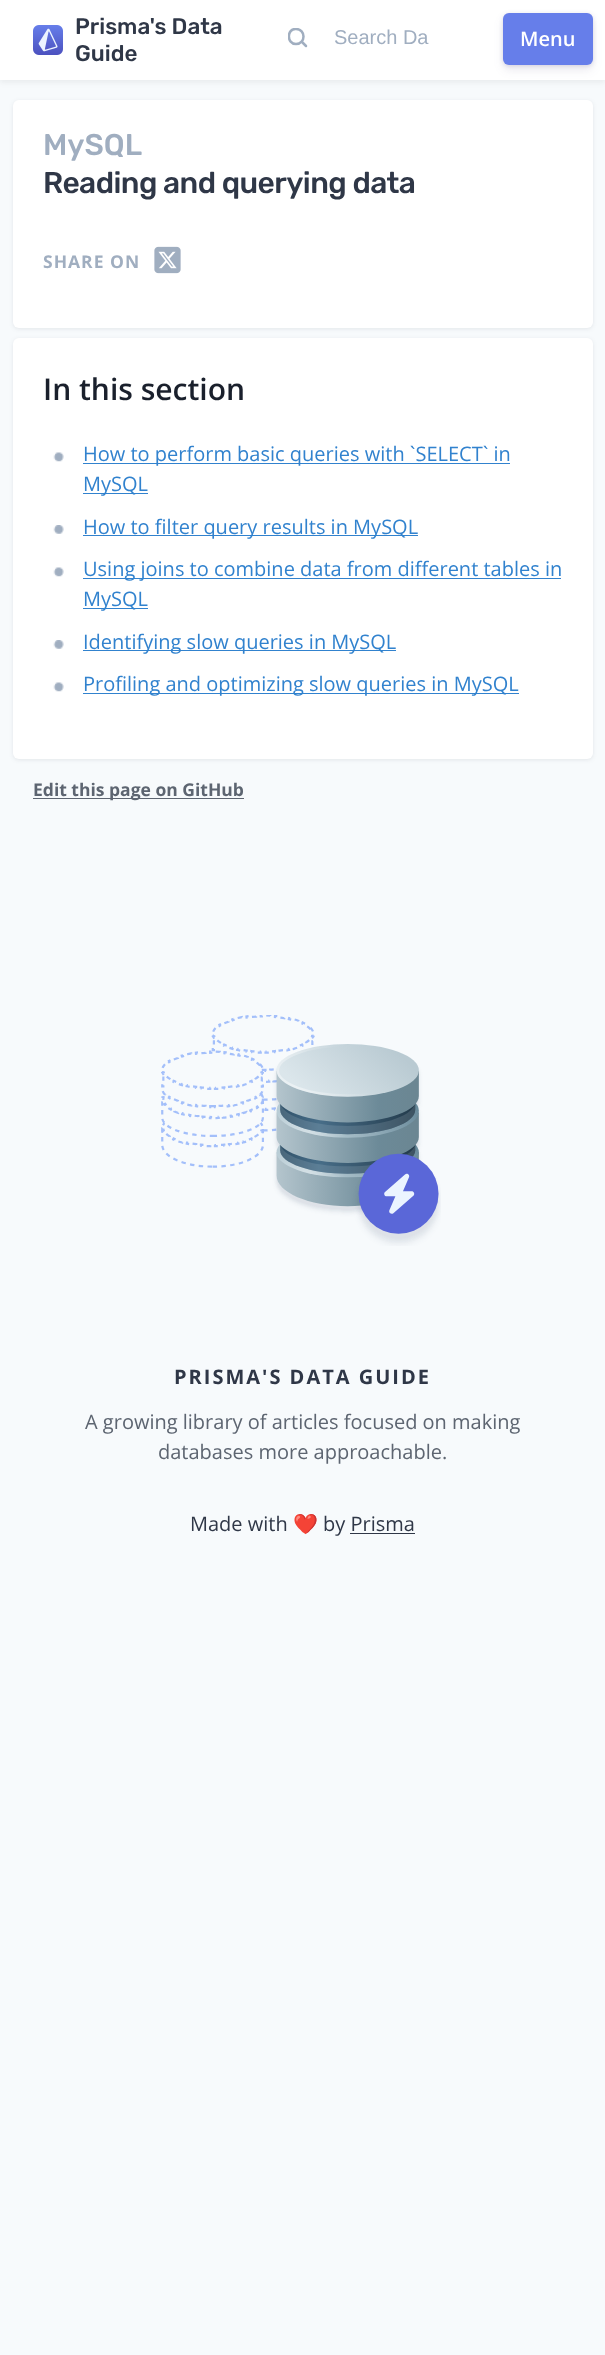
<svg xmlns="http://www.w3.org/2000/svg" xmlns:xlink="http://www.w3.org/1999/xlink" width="605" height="2355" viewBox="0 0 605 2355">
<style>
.cls-1{font:500 22.5px Rubik;fill:#2f3747}
.cls-2{font:20px Liberation Sans;fill:#a0aec0}
.cls-3{font:600 20px Open Sans;fill:#ffffff}
.cls-4{font:500 30px Rubik;fill:#a0aec0}
.cls-5{font:500 30px Rubik;letter-spacing:-0.6px;fill:#2f3747}
.cls-6{font:bold 17.5px Open Sans;letter-spacing:1px;fill:#a0aec0}
.cls-7{font:600 30px Open Sans;fill:#1a202c}
.cls-8{font:20px Open Sans;fill:#3182ce}
.cls-9{font:bold 17.5px Open Sans;fill:#5d6571}
.cls-10{font:bold 20px Open Sans;letter-spacing:2px;fill:#2f3747}
.cls-11{font:20px Open Sans;fill:#5d6571}
.cls-12{font:20px Open Sans;fill:#2f3747}
.cls-13{font:20px Noto Color Emoji;fill:#2f3747}
</style>
<defs>
<clipPath id="clip1"><rect x="288" y="28" width="20" height="20"/></clipPath>
</defs>
<rect width="100%" height="100%" fill="#f7fafc"/>
<rect fill="#58565f" fill-opacity="0.08" filter="blur(2.5px)" x="0" y="3" width="605" height="80"/>
<rect fill="#ffffff" x="0" y="0" width="605" height="80"/>
<image xlink:href="image0.png" x="33" y="25" width="30" height="30"/>
<g clip-path="url(#clip1)">
<path fill="none" stroke="#a0aec0" stroke-width="2.5" stroke-linecap="round" stroke-linejoin="round" d="M296 44C306 44 306 29 296 29C286.5 28.5 286.5 44 296 44Z"/>
</g>
<path fill="none" stroke="#a0aec0" stroke-width="2.5" stroke-linecap="round" stroke-linejoin="round" d="M306 46L302.5 42.5"/>
<rect fill="#3c2d6f" fill-opacity="0.15" filter="blur(2px)" x="503" y="14" width="90" height="52" rx="6"/>
<rect fill="#3c2d6f" fill-opacity="0.1" filter="blur(5px)" x="503" y="18" width="90" height="52" rx="6"/>
<rect fill="#667eea" x="503" y="13" width="90" height="52" rx="6"/>
<rect fill="#2f3747" fill-opacity="0.1" filter="blur(2px)" x="13" y="101" width="580" height="228" rx="6"/>
<rect fill="#ffffff" x="13" y="100" width="580" height="228" rx="6"/>
<image xlink:href="image1.png" x="154" y="246" width="27" height="28"/>
<rect fill="#2f3747" fill-opacity="0.1" filter="blur(2px)" x="13" y="339" width="580" height="421" rx="6"/>
<rect fill="#ffffff" x="13" y="338" width="580" height="421" rx="6"/>
<image xlink:href="image2.png" x="53" y="452" width="11" height="10"/>
<rect fill="#3182ce" x="83" y="463" width="427" height="1"/>
<rect fill="#3182ce" x="83" y="493" width="65" height="1"/>
<image xlink:href="image3.png" x="53" y="525" width="11" height="9"/>
<rect fill="#3182ce" x="83" y="535" width="335" height="1"/>
<image xlink:href="image2.png" x="53" y="567" width="11" height="10"/>
<rect fill="#3182ce" x="83" y="578" width="478" height="1"/>
<rect fill="#3182ce" x="83" y="608" width="65" height="1"/>
<image xlink:href="image3.png" x="53" y="640" width="11" height="9"/>
<rect fill="#3182ce" x="83" y="650" width="313" height="1"/>
<image xlink:href="image2.png" x="53" y="682" width="11" height="10"/>
<rect fill="#3182ce" x="83" y="693" width="436" height="1"/>
<rect fill="#5d6571" x="33" y="798" width="211" height="1"/>
<image xlink:href="image4.png" x="161" y="1015" width="280" height="231"/>
<rect fill="#2f3747" x="350" y="1533" width="65" height="1"/>
<text class="cls-1"><tspan x="75" y="34">Prisma's Data</tspan><tspan x="75" y="61">Guide</tspan></text>
<text class="cls-2" x="334" y="44">Search Da</text>
<text class="cls-3" x="520" y="46">Menu</text>
<text class="cls-4" x="43" y="155">MySQL</text>
<text class="cls-5" x="43" y="193">Reading and querying data</text>
<text class="cls-6" x="43" y="268">SHARE ON</text>
<text class="cls-7" x="43" y="400">In this section</text>
<text class="cls-8"><tspan x="83" y="461">How to perform basic queries with `SELECT` in</tspan><tspan x="83" y="491">MySQL</tspan></text>
<text class="cls-8" x="83" y="534">How to filter query results in MySQL</text>
<text class="cls-8"><tspan x="83" y="576">Using joins to combine data from different tables in</tspan><tspan x="83" y="606">MySQL</tspan></text>
<text class="cls-8" x="83" y="649">Identifying slow queries in MySQL</text>
<text class="cls-8" x="83" y="691">Profiling and optimizing slow queries in MySQL</text>
<text class="cls-9" x="33" y="796">Edit this page on GitHub</text>
<text class="cls-10" x="174" y="1384">PRISMA'S DATA GUIDE</text>
<text class="cls-11" x="85" y="1429">A growing library of articles focused on making</text>
<text class="cls-11" x="158" y="1459">databases more approachable.</text>
<text class="cls-12" x="190" y="1531">Made with</text>
<text class="cls-13" x="293" y="1531">❤️</text>
<text class="cls-12" x="323" y="1531">by Prisma</text>
</svg>
